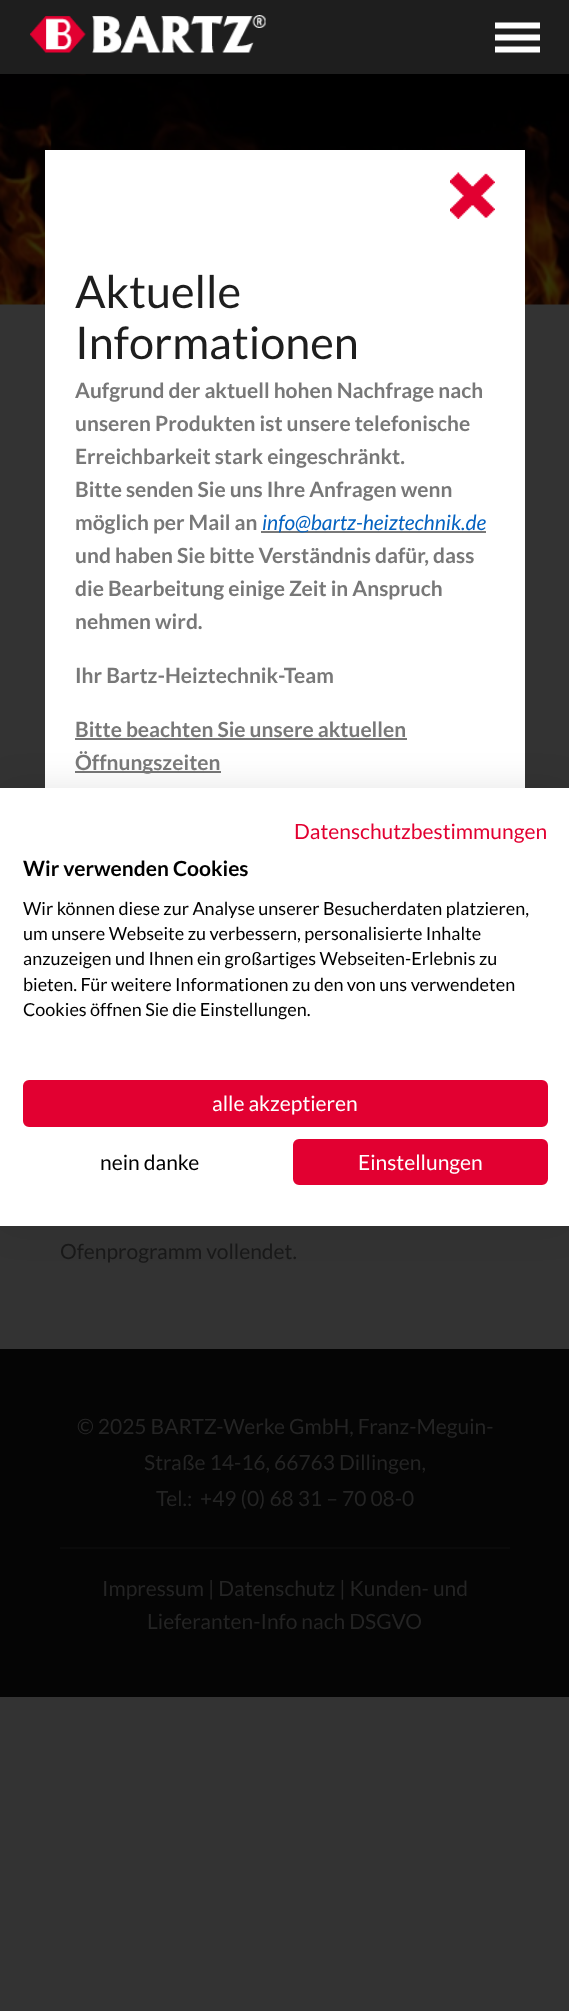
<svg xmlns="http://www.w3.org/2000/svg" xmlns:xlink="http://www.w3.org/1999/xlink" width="569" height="2011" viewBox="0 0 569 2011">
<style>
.cls-1{font:45px Lato;fill:#1e1e1e}
.cls-2{font:bold 21px Lato;fill:#787878}
.cls-3{font:italic 21px Lato;fill:#0563c1}
.cls-4{font:21px Lato;fill:#e20031}
.cls-5{font:bold 21px Lato;fill:#000000}
.cls-6{font:18px Lato;fill:#000000}
.cls-7{font:21px Lato;fill:#ffffff}
.cls-8{font:21px Lato;fill:#000000}
.cls-9{font:21px Lato;fill:#181818}
.cls-10{font:21px Lato;fill:#242424}
</style>
<rect width="100%" height="100%" fill="#333333"/>
<rect fill="#1e1e1e" x="0" y="0" width="569" height="74"/>
<image xlink:href="image0.png" x="30" y="15" width="236" height="38"/>
<image xlink:href="image1.png" x="495" y="22" width="45" height="31"/>
<image xlink:href="image3.png" x="0" y="74" width="569" height="231"/>
<rect fill="#ffffff" x="45" y="150" width="480" height="638"/>
<image xlink:href="image2.png" x="450" y="172" width="45" height="47"/>
<rect fill="#787878" x="261" y="531" width="225" height="2"/>
<rect fill="#787878" x="75" y="738" width="332" height="2"/>
<rect fill="#787878" x="75" y="771" width="146" height="2"/>
<rect fill="#000000" fill-opacity="0.1" filter="blur(18px)" x="0" y="788" width="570" height="438"/>
<rect fill="#ffffff" x="0" y="788" width="569" height="438"/>
<rect fill="#e20031" stroke="#e20031" stroke-width="2" x="24" y="1081" width="523" height="45" rx="5"/>
<rect fill="#e20031" stroke="#e20031" stroke-width="2" x="294" y="1140" width="253" height="44" rx="5"/>
<rect fill="#050505" x="0" y="1349" width="569" height="348"/>
<rect fill="#0a0a0a" x="60" y="1547" width="450" height="2"/>
<text class="cls-1"><tspan x="75" y="308">Aktuelle</tspan><tspan x="75" y="359">Informationen</tspan></text>
<text class="cls-2"><tspan x="75" y="398">Aufgrund der aktuell hohen Nachfrage nach</tspan><tspan x="75" y="431">unseren Produkten ist unsere telefonische</tspan><tspan x="75" y="464">Erreichbarkeit stark eingeschränkt.</tspan><tspan x="75" y="497">Bitte senden Sie uns Ihre Anfragen wenn</tspan><tspan x="75" y="530">möglich per Mail an</tspan></text>
<text class="cls-3" x="262" y="530">info@bartz-heiztechnik.de</text>
<text class="cls-2"><tspan x="75" y="563">und haben Sie bitte Verständnis dafür, dass</tspan><tspan x="75" y="596">die Bearbeitung einige Zeit in Anspruch</tspan><tspan x="75" y="629">nehmen wird.</tspan></text>
<text class="cls-2" x="75" y="683">Ihr Bartz-Heiztechnik-Team</text>
<text class="cls-2"><tspan x="75" y="737">Bitte beachten Sie unsere aktuellen</tspan><tspan x="75" y="770">Öffnungszeiten</tspan></text>
<text class="cls-4" x="294" y="839">Datenschutzbestimmungen</text>
<text class="cls-5" x="23" y="876">Wir verwenden Cookies</text>
<text class="cls-6"><tspan x="23" y="915">Wir können diese zur Analyse unserer Besucherdaten platzieren,</tspan><tspan x="23" y="940">um unsere Webseite zu verbessern, personalisierte Inhalte</tspan><tspan x="23" y="965">anzuzeigen und Ihnen ein großartiges Webseiten-Erlebnis zu</tspan><tspan x="23" y="991">bieten. Für weitere Informationen zu den von uns verwendeten</tspan><tspan x="23" y="1016">Cookies öffnen Sie die Einstellungen.</tspan></text>
<text class="cls-7" x="212" y="1111">alle akzeptieren</text>
<text class="cls-8" x="100" y="1170">nein danke</text>
<text class="cls-7" x="358" y="1170">Einstellungen</text>
<text class="cls-9" x="60" y="1259">Ofenprogramm vollendet.</text>
<text class="cls-10" x="77" y="1434">© 2025 BARTZ-Werke GmbH, Franz-Meguin-</text>
<text class="cls-10" x="144" y="1470">Straße 14-16, 66763 Dillingen,</text>
<text class="cls-10" x="156" y="1506">Tel.:</text>
<text class="cls-10" x="200" y="1506">+49 (0) 68 31 – 70 08-0</text>
<text class="cls-10" x="102" y="1596">Impressum | Datenschutz | Kunden- und</text>
<text class="cls-10" x="147" y="1629">Lieferanten-Info nach DSGVO</text>
</svg>
